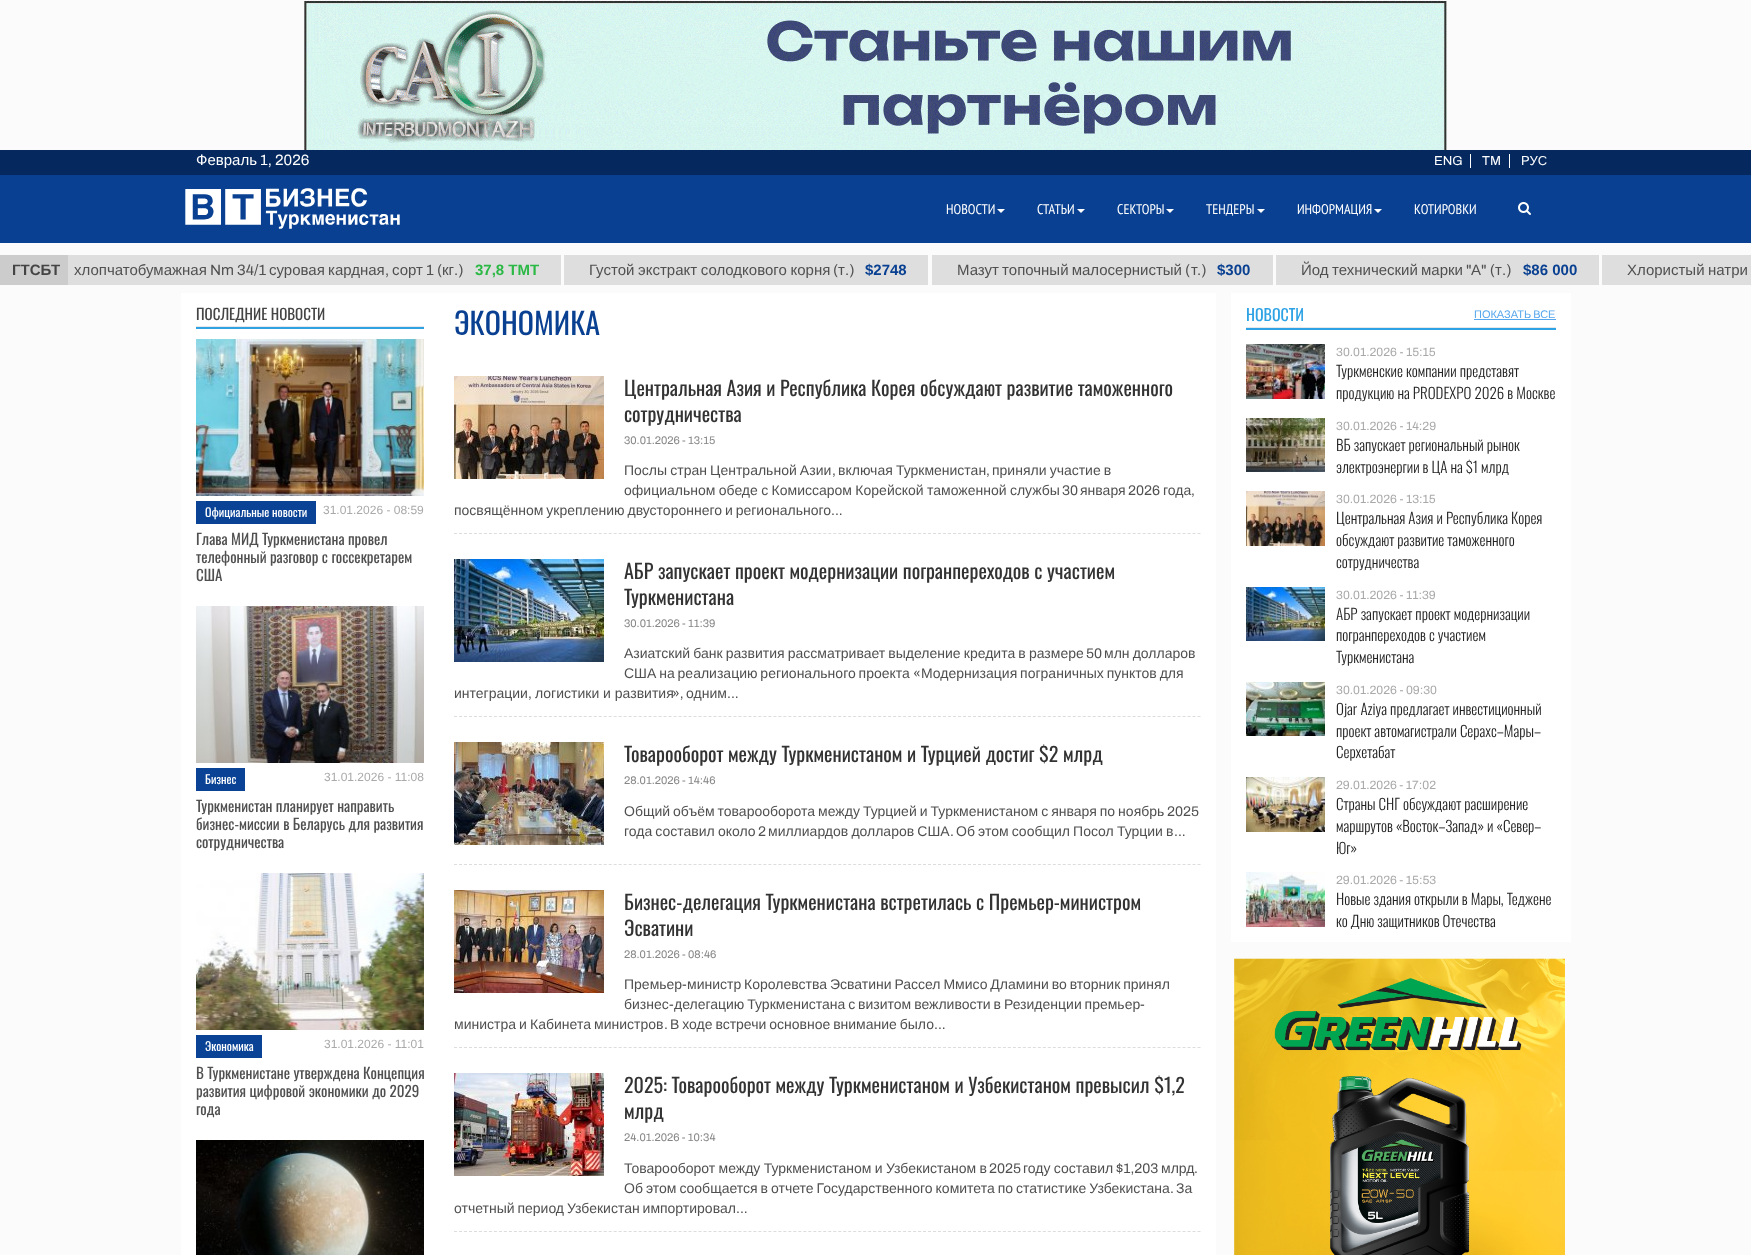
<svg xmlns="http://www.w3.org/2000/svg" xmlns:xlink="http://www.w3.org/1999/xlink" width="1751" height="1255" viewBox="0 0 1751 1255">
<style>
.cls-1{font:15px Liberation Sans;fill:#ffffff}
.cls-2{font:15px Archivo;fill:#ffffff}
.cls-3{font:13px Archivo;fill:#ffffff}
.cls-4{font:13px Liberation Sans;fill:#ffffff}
.cls-5{font:14px PT Sans Narrow;fill:#ffffff}
.cls-6{font:bold 15px Liberation Sans;fill:#444444}
.cls-7{font:15px Liberation Sans;fill:#505050}
.cls-8{font:15px Archivo;fill:#505050}
.cls-9{font:bold 15px Liberation Sans;fill:#2bb845}
.cls-10{font:bold 15px Liberation Sans;fill:#094091}
.cls-11{font:15px Oswald;fill:#444444}
.cls-12{font:12px Oswald;fill:#ffffff}
.cls-13{font:12px Liberation Sans;fill:#a9a9a9}
.cls-14{font:15px Oswald;fill:#505050}
.cls-15{font:30px Oswald;fill:#094091}
.cls-16{font:20px Oswald;fill:#333333}
.cls-17{font:11px Archivo;fill:#868686}
.cls-18{font:14px Liberation Sans;fill:#505050}
.cls-19{font:14px Archivo;fill:#505050}
.cls-20{font:16px Oswald;fill:#2da2e5}
.cls-21{font:11px Liberation Sans;fill:#57a7ec}
.cls-22{font:12px Archivo;fill:#a9a9a9}
.cls-23{font:300 15px Oswald;fill:#232323}
</style>
<rect width="100%" height="100%" fill="#fbfbfb"/>
<image xlink:href="image0.png" x="304" y="0" width="1143" height="150"/>
<rect fill="#094091" x="0" y="175" width="1751" height="68"/>
<rect fill="#05295f" x="0" y="150" width="1751" height="25"/>
<rect fill="#ffffff" x="1470" y="154" width="1" height="14"/>
<rect fill="#ffffff" x="1509" y="154" width="1" height="14"/>
<image xlink:href="image1.png" x="185" y="188" width="215" height="41"/>
<path fill="#ffffff" d="M997 209H1005L1001 213Z"/>
<path fill="#ffffff" d="M1077 209H1085L1081 213Z"/>
<path fill="#ffffff" d="M1166 209H1174L1170 213Z"/>
<path fill="#ffffff" d="M1257 209H1265L1261 213Z"/>
<path fill="#ffffff" d="M1374 209H1382L1378 213Z"/>
<image xlink:href="image2.png" x="1518" y="202" width="13" height="13"/>
<rect fill="#cccccc" x="0" y="255" width="68" height="30"/>
<rect fill="#dedede" x="68" y="255" width="493" height="30"/>
<rect fill="#dedede" x="564" y="255" width="364" height="30"/>
<rect fill="#dedede" x="932" y="255" width="341" height="30"/>
<rect fill="#dedede" x="1276" y="255" width="323" height="30"/>
<rect fill="#dedede" x="1602" y="255" width="149" height="30"/>
<rect fill="#ffffff" x="181" y="293" width="1035" height="962"/>
<rect fill="#2da2e5" x="196" y="327" width="228" height="2"/>
<rect fill="#e7e7e7" x="196" y="326" width="228" height="1"/>
<image xlink:href="image3.png" x="196" y="339" width="228" height="157"/>
<rect fill="#0a4396" x="196" y="501" width="120" height="23"/>
<image xlink:href="image4.png" x="196" y="606" width="228" height="157"/>
<rect fill="#0a4396" x="196" y="768" width="49" height="23"/>
<image xlink:href="image5.png" x="196" y="873" width="228" height="157"/>
<rect fill="#0a4396" x="196" y="1035" width="66" height="23"/>
<image xlink:href="image6.png" x="196" y="1140" width="228" height="115"/>
<image xlink:href="image7.png" x="454" y="376" width="150" height="103"/>
<path fill="none" stroke="#dddddd" stroke-dasharray="3 1.99" d="M454 533.5H1201"/>
<image xlink:href="image8.png" x="454" y="559" width="150" height="103"/>
<path fill="none" stroke="#dddddd" stroke-dasharray="3 1.99" d="M454 716.5H1201"/>
<image xlink:href="image9.png" x="454" y="742" width="150" height="103"/>
<path fill="none" stroke="#dddddd" stroke-dasharray="3 1.99" d="M454 864.5H1201"/>
<image xlink:href="image10.png" x="454" y="890" width="150" height="103"/>
<path fill="none" stroke="#dddddd" stroke-dasharray="3 1.99" d="M454 1047.5H1201"/>
<image xlink:href="image11.png" x="454" y="1073" width="150" height="103"/>
<path fill="none" stroke="#dddddd" stroke-dasharray="3 1.99" d="M454 1231.5H1201"/>
<rect fill="#ffffff" x="1231" y="293" width="340" height="649"/>
<rect fill="#2da2e5" x="1246" y="328" width="310" height="2"/>
<rect fill="#e7e7e7" x="1246" y="327" width="310" height="1"/>
<rect fill="#57a7ec" x="1474" y="319" width="82" height="1"/>
<image xlink:href="image12.png" x="1246" y="344" width="79" height="55"/>
<image xlink:href="image13.png" x="1246" y="418" width="79" height="54"/>
<image xlink:href="image14.png" x="1246" y="491" width="79" height="55"/>
<image xlink:href="image15.png" x="1246" y="587" width="79" height="54"/>
<image xlink:href="image16.png" x="1246" y="682" width="79" height="54"/>
<image xlink:href="image17.png" x="1246" y="777" width="79" height="55"/>
<image xlink:href="image18.png" x="1246" y="872" width="79" height="55"/>
<image xlink:href="image19.png" x="1234" y="958" width="331" height="297"/>
<text class="cls-1" x="196" y="165">Февраль</text>
<text class="cls-2" x="260" y="165">1, 2026</text>
<text class="cls-3" x="1434" y="165">ENG</text>
<text class="cls-3" x="1482" y="165">TM</text>
<text class="cls-4" x="1521" y="165">РУС</text>
<text class="cls-5" x="946" y="214">НОВОСТИ</text>
<text class="cls-5" x="1037" y="214">СТАТЬИ</text>
<text class="cls-5" x="1117" y="214">СЕКТОРЫ</text>
<text class="cls-5" x="1206" y="214">ТЕНДЕРЫ</text>
<text class="cls-5" x="1297" y="214">ИНФОРМАЦИЯ</text>
<text class="cls-5" x="1414" y="214">КОТИРОВКИ</text>
<text class="cls-6" x="12" y="275">ГТСБТ</text>
<text class="cls-7" x="74" y="275">хлопчатобумажная</text>
<text class="cls-8" x="210" y="275">Nm 34/1</text>
<text class="cls-7" x="269" y="275">суровая</text>
<text class="cls-7" x="328" y="275">кардная</text>
<text class="cls-7" x="392" y="275">сорт</text>
<text class="cls-8" x="426" y="275">1 (</text>
<text class="cls-7" x="442" y="275">кг</text>
<text class="cls-8" x="454" y="275">.)</text>
<text class="cls-9" x="475" y="275">37,8 ТМТ</text>
<text class="cls-8" x="385" y="275">,</text>
<text class="cls-7" x="589" y="275" word-spacing="-0.5">Густой экстракт солодкового корня</text>
<text class="cls-8" x="833" y="275">(</text>
<text class="cls-7" x="838" y="275">т</text>
<text class="cls-8" x="845" y="275">.)</text>
<text class="cls-10" x="865" y="275">$2748</text>
<text class="cls-7" x="957" y="275" word-spacing="-1">Мазут топочный малосернистый</text>
<text class="cls-8" x="1185" y="275">(</text>
<text class="cls-7" x="1191" y="275">т</text>
<text class="cls-8" x="1197" y="275">.)</text>
<text class="cls-10" x="1217" y="275">$300</text>
<text class="cls-7" x="1301" y="275">Йод</text>
<text class="cls-7" x="1332" y="275">технический</text>
<text class="cls-7" x="1421" y="275">марки</text>
<text class="cls-8" x="1466" y="275">"</text>
<text class="cls-7" x="1471" y="275">А</text>
<text class="cls-8" x="1481" y="275">" (</text>
<text class="cls-7" x="1495" y="275">т</text>
<text class="cls-8" x="1502" y="275">.)</text>
<text class="cls-10" x="1523" y="275">$86 000</text>
<text class="cls-7" x="1627" y="275">Хлористый</text>
<text class="cls-7" x="1708" y="275">натри</text>
<text class="cls-11" x="196" y="320">ПОСЛЕДНИЕ НОВОСТИ</text>
<text class="cls-12" x="205" y="517">Официальные новости</text>
<text class="cls-13" x="323" y="514">31.01.2026 - 08:59</text>
<text class="cls-14"><tspan x="196" y="545">Глава МИД Туркменистана провел</tspan><tspan x="196" y="563">телефонный разговор с госсекретарем</tspan><tspan x="196" y="581">США</tspan></text>
<text class="cls-12" x="205" y="784">Бизнес</text>
<text class="cls-13" x="324" y="781">31.01.2026 - 11:08</text>
<text class="cls-14"><tspan x="196" y="812">Туркменистан планирует направить</tspan><tspan x="196" y="830">бизнес-миссии в Беларусь для развития</tspan><tspan x="196" y="848">сотрудничества</tspan></text>
<text class="cls-12" x="205" y="1051">Экономика</text>
<text class="cls-13" x="324" y="1048">31.01.2026 - 11:01</text>
<text class="cls-14"><tspan x="196" y="1079">В Туркменистане утверждена Концепция</tspan><tspan x="196" y="1097">развития цифровой экономики до 2029</tspan><tspan x="196" y="1115">года</tspan></text>
<text class="cls-15" x="454" y="335">ЭКОНОМИКА</text>
<text class="cls-16"><tspan x="624" y="396">Центральная Азия и Республика Корея обсуждают развитие таможенного</tspan><tspan x="624" y="422">сотрудничества</tspan></text>
<text class="cls-17" x="624" y="444">30.01.2026 - 13:15</text>
<text class="cls-18" x="624" y="475" word-spacing="-0.75">Послы стран Центральной Азии</text>
<text class="cls-19" x="832" y="475">,</text>
<text class="cls-18" x="838" y="475" word-spacing="-0.75">включая Туркменистан</text>
<text class="cls-19" x="986" y="475">,</text>
<text class="cls-18" x="992" y="475" word-spacing="-0.75">приняли участие в</text>
<text class="cls-18" x="624" y="495" word-spacing="-0.5">официальном обеде с Комиссаром Корейской таможенной службы</text>
<text class="cls-19" x="1062" y="495">30</text>
<text class="cls-18" x="1080" y="495">января</text>
<text class="cls-19" x="1128" y="495">2026</text>
<text class="cls-18" x="1163" y="495">года</text>
<text class="cls-19" x="1191" y="495">,</text>
<text class="cls-18" x="454" y="515" word-spacing="-1">посвящённом укреплению двустороннего и регионального</text>
<text class="cls-19" x="831" y="515">...</text>
<text class="cls-16"><tspan x="624" y="579">АБР запускает проект модернизации погранпереходов с участием</tspan><tspan x="624" y="605">Туркменистана</tspan></text>
<text class="cls-17" x="624" y="627">30.01.2026 - 11:39</text>
<text class="cls-18" x="624" y="658" word-spacing="-0.75">Азиатский банк развития рассматривает выделение кредита в размере</text>
<text class="cls-19" x="1086" y="658">50</text>
<text class="cls-18" x="1104" y="658" word-spacing="-0.75">млн долларов</text>
<text class="cls-18" x="624" y="678" word-spacing="-1">США на реализацию регионального проекта</text>
<text class="cls-19" x="913" y="678">«</text>
<text class="cls-18" x="921" y="678" word-spacing="-1">Модернизация пограничных пунктов для</text>
<text class="cls-18" x="454" y="698">интеграции</text>
<text class="cls-19" x="528" y="698">,</text>
<text class="cls-18" x="535" y="698">логистики и развития</text>
<text class="cls-19" x="672" y="698">»,</text>
<text class="cls-18" x="686" y="698">одним</text>
<text class="cls-19" x="727" y="698">...</text>
<text class="cls-16" x="624" y="762">Товарооборот между Туркменистаном и Турцией достиг $2 млрд</text>
<text class="cls-17" x="624" y="784">28.01.2026 - 14:46</text>
<text class="cls-18" x="624" y="816" word-spacing="-0.9">Общий объём товарооборота между Турцией и Туркменистаном с января по ноябрь</text>
<text class="cls-19" x="1167" y="816">2025</text>
<text class="cls-18" x="624" y="836" word-spacing="-0.75">года составил около</text>
<text class="cls-19" x="758" y="836">2</text>
<text class="cls-18" x="768" y="836" word-spacing="-0.75">миллиардов долларов США</text>
<text class="cls-19" x="950" y="836">.</text>
<text class="cls-18" x="956" y="836" word-spacing="-0.75">Об этом сообщил Посол Турции в</text>
<text class="cls-19" x="1174" y="836">...</text>
<text class="cls-16"><tspan x="624" y="910">Бизнес-делегация Туркменистана встретилась с Премьер-министром</tspan><tspan x="624" y="936">Эсватини</tspan></text>
<text class="cls-17" x="624" y="958">28.01.2026 - 08:46</text>
<text class="cls-18" x="624" y="989">Премьер</text>
<text class="cls-19" x="682" y="989">-</text>
<text class="cls-18" x="687" y="989" word-spacing="-1">министр Королевства Эсватини Рассел Ммисо Дламини во вторник принял</text>
<text class="cls-18" x="624" y="1009">бизнес</text>
<text class="cls-19" x="669" y="1009">-</text>
<text class="cls-18" x="674" y="1009" word-spacing="-1">делегацию Туркменистана с визитом вежливости в Резиденции премьер</text>
<text class="cls-19" x="1140" y="1009">-</text>
<text class="cls-18" x="454" y="1029" word-spacing="-0.75">министра и Кабинета министров</text>
<text class="cls-19" x="664" y="1029">.</text>
<text class="cls-18" x="670" y="1029" word-spacing="-1">В ходе встречи основное внимание было</text>
<text class="cls-19" x="934" y="1029">...</text>
<text class="cls-16"><tspan x="624" y="1093">2025: Товарооборот между Туркменистаном и Узбекистаном превысил $1,2</tspan><tspan x="624" y="1119">млрд</tspan></text>
<text class="cls-17" x="624" y="1141">24.01.2026 - 10:34</text>
<text class="cls-18" x="624" y="1173" word-spacing="-0.5">Товарооборот между Туркменистаном и Узбекистаном в</text>
<text class="cls-19" x="989" y="1173">2025</text>
<text class="cls-18" x="1023" y="1173" word-spacing="-0.5">году составил</text>
<text class="cls-19" x="1116" y="1173">$1,203</text>
<text class="cls-18" x="1161" y="1173">млрд</text>
<text class="cls-19" x="1194" y="1173">.</text>
<text class="cls-18" x="624" y="1193" word-spacing="-0.9">Об этом сообщается в отчете Государственного комитета по статистике Узбекистана</text>
<text class="cls-19" x="1170" y="1193">.</text>
<text class="cls-18" x="1176" y="1193">За</text>
<text class="cls-18" x="454" y="1213" word-spacing="-1">отчетный период Узбекистан импортировал</text>
<text class="cls-19" x="736" y="1213">...</text>
<text class="cls-20" x="1246" y="321">НОВОСТИ</text>
<text class="cls-21" x="1474" y="318" word-spacing="-1">ПОКАЗАТЬ ВСЕ</text>
<text class="cls-22" x="1336" y="356">30.01.2026 - 15:15</text>
<text class="cls-23"><tspan x="1336" y="377">Туркменские компании представят</tspan><tspan x="1336" y="399">продукцию на PRODEXPO 2026 в Москве</tspan></text>
<text class="cls-22" x="1336" y="430">30.01.2026 - 14:29</text>
<text class="cls-23"><tspan x="1336" y="451">ВБ запускает региональный рынок</tspan><tspan x="1336" y="473">электроэнергии в ЦА на $1 млрд</tspan></text>
<text class="cls-22" x="1336" y="503">30.01.2026 - 13:15</text>
<text class="cls-23"><tspan x="1336" y="524">Центральная Азия и Республика Корея</tspan><tspan x="1336" y="546">обсуждают развитие таможенного</tspan><tspan x="1336" y="568">сотрудничества</tspan></text>
<text class="cls-22" x="1336" y="599">30.01.2026 - 11:39</text>
<text class="cls-23"><tspan x="1336" y="620">АБР запускает проект модернизации</tspan><tspan x="1336" y="641">погранпереходов с участием</tspan><tspan x="1336" y="663">Туркменистана</tspan></text>
<text class="cls-22" x="1336" y="694">30.01.2026 - 09:30</text>
<text class="cls-23"><tspan x="1336" y="715">Ojar Aziya предлагает инвестиционный</tspan><tspan x="1336" y="737">проект автомагистрали Серахс–Мары–</tspan><tspan x="1336" y="758">Серхетабат</tspan></text>
<text class="cls-22" x="1336" y="789">29.01.2026 - 17:02</text>
<text class="cls-23"><tspan x="1336" y="810">Страны СНГ обсуждают расширение</tspan><tspan x="1336" y="832">маршрутов «Восток–Запад» и «Север–</tspan><tspan x="1336" y="854">Юг»</tspan></text>
<text class="cls-22" x="1336" y="884">29.01.2026 - 15:53</text>
<text class="cls-23"><tspan x="1336" y="905">Новые здания открыли в Мары, Теджене</tspan><tspan x="1336" y="927">ко Дню защитников Отечества</tspan></text>
</svg>
